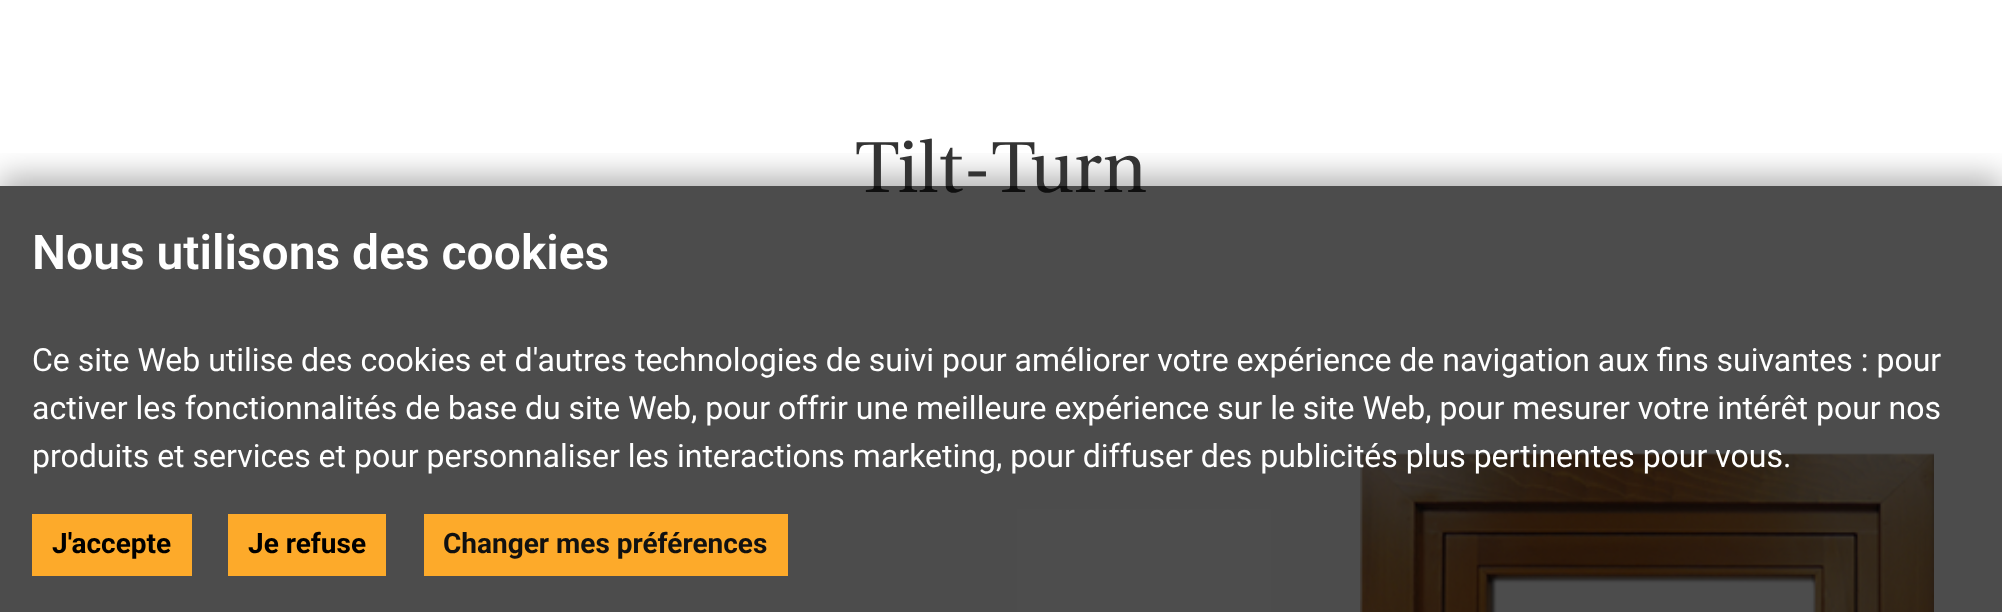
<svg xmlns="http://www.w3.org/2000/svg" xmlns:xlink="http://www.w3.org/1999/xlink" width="2002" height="612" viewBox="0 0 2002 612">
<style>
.cls-1{font:72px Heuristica;fill:#333333}
.cls-2{font:600 48px Roboto;fill:#ffffff}
.cls-3{font:32px Roboto;fill:#ffffff}
.cls-4{font:bold 28px Roboto;fill:#000000}
.cls-5{font:bold 28px Roboto;fill:#111111}
</style>
<defs>
<clipPath id="clip1"><rect x="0" y="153" width="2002" height="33"/></clipPath>
</defs>
<rect width="100%" height="100%" fill="#ffffff"/>
<image xlink:href="image0.png" x="1360" y="453" width="574" height="159"/>
<g clip-path="url(#clip1)">
<rect fill="#000000" fill-opacity="0.3" filter="blur(15px)" x="0" y="176" width="2002" height="426"/>
</g>
<text class="cls-1" x="855" y="192">Tilt-Turn</text>
<rect fill="#000000" fill-opacity="0.7" x="0" y="186" width="2002" height="426"/>
<text class="cls-2" x="32" y="269">Nous utilisons des cookies</text>
<text class="cls-3"><tspan x="32" y="371">Ce site Web utilise des cookies et d'autres technologies de suivi pour améliorer votre expérience de navigation aux fins suivantes : pour</tspan><tspan x="32" y="419">activer les fonctionnalités de base du site Web, pour offrir une meilleure expérience sur le site Web, pour mesurer votre intérêt pour nos</tspan><tspan x="32" y="467">produits et services et pour personnaliser les interactions marketing, pour diffuser des publicités plus pertinentes pour vous.</tspan></text>
<rect fill="#fdaa2a" x="32" y="514" width="160" height="62"/>
<text class="cls-4" x="52" y="553">J'accepte</text>
<rect fill="#fdaa2a" x="228" y="514" width="158" height="62"/>
<text class="cls-4" x="248" y="553">Je refuse</text>
<rect fill="#fdaa2a" x="424" y="514" width="364" height="62"/>
<text class="cls-5" x="443" y="553">Changer mes préférences</text>
</svg>
